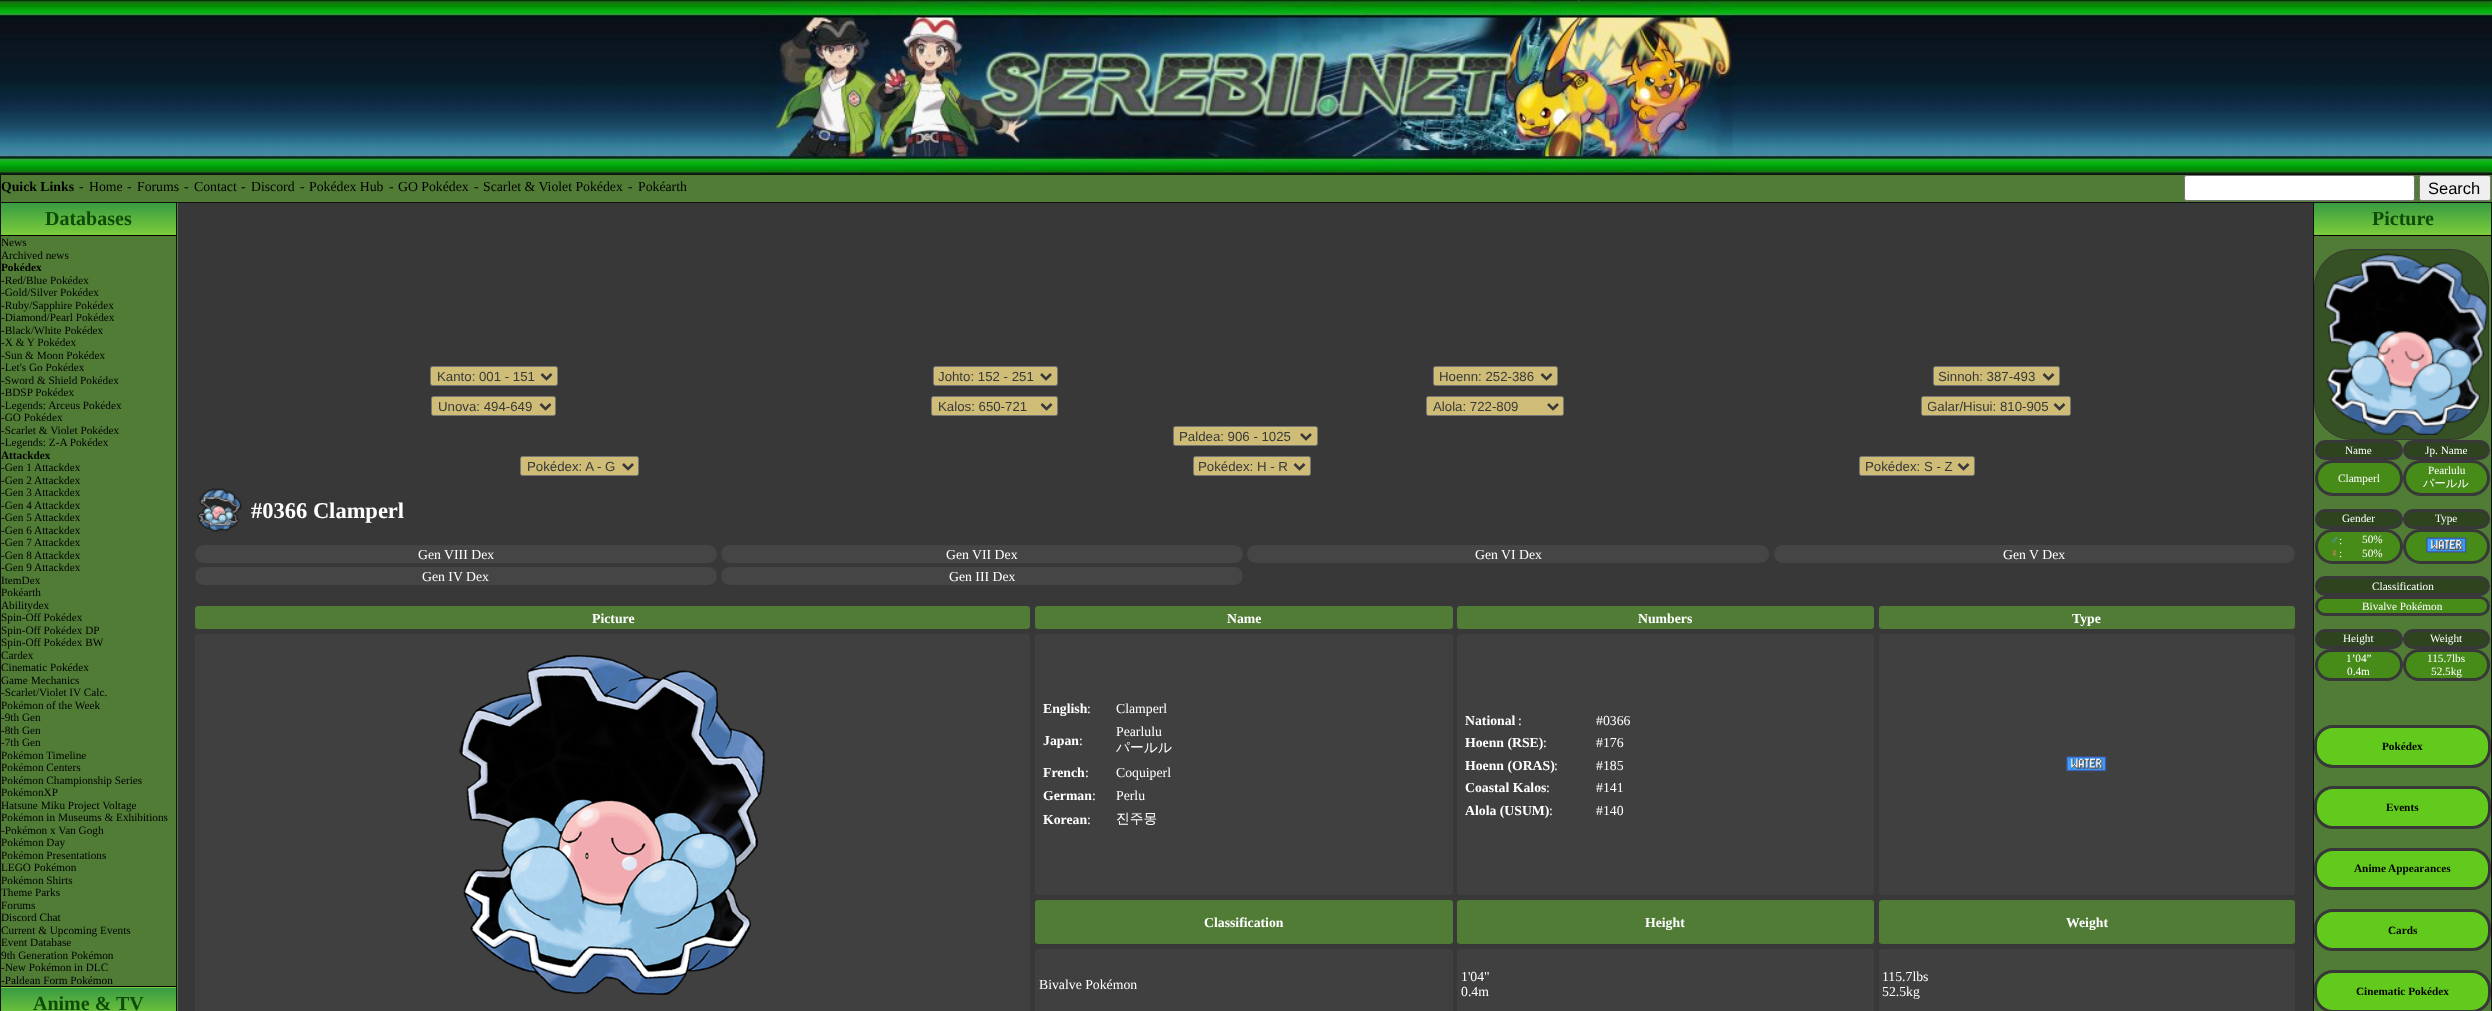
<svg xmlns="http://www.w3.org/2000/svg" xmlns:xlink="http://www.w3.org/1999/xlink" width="2492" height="1011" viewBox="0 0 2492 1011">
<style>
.cls-1{font:bold 13.75px Liberation Serif;fill:#000000}
.cls-2{font:13.75px Liberation Serif;fill:#000000}
.cls-3{font:16.5px Liberation Sans;fill:#000000}
.cls-4{font:bold 20px Liberation Serif;fill:#104c09}
.cls-5{font:11.25px Liberation Serif;fill:#000000}
.cls-6{font:bold 11.25px Liberation Serif;fill:#000000}
.cls-7{font:13.25px Liberation Sans;fill:#383838}
.cls-8{font:bold 22.5px Liberation Serif;fill:#ffffff}
.cls-9{font:13.75px Liberation Serif;fill:#ffffff}
.cls-10{font:bold 13.75px Liberation Serif;fill:#ffffff}
.cls-11{font:500 13.75px WenQuanYi Zen Hei;fill:#ffffff}
.cls-12{font:11.25px Liberation Serif;fill:#ffffff}
.cls-13{font:500 11.25px WenQuanYi Zen Hei;fill:#ffffff}
.cls-14{font:12px Liberation Serif;fill:#499fff}
.cls-15{font:12px Liberation Serif;fill:#f6807a}
</style>
<defs>
<linearGradient id="g1" gradientUnits="userSpaceOnUse" x1="89" y1="203" x2="89" y2="235"><stop offset="0" stop-color="#399b43"/><stop offset="1" stop-color="#7bcd3b"/></linearGradient>
<linearGradient id="g2" gradientUnits="userSpaceOnUse" x1="89" y1="955" x2="89" y2="988"><stop offset="0" stop-color="#399b43"/><stop offset="1" stop-color="#7bcd3b"/></linearGradient>
<linearGradient id="g3" gradientUnits="userSpaceOnUse" x1="89" y1="988" x2="89" y2="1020"><stop offset="0" stop-color="#399b43"/><stop offset="1" stop-color="#7bcd3b"/></linearGradient>
<linearGradient id="g4" gradientUnits="userSpaceOnUse" x1="2403" y1="203" x2="2403" y2="235"><stop offset="0" stop-color="#399b43"/><stop offset="1" stop-color="#7bcd3b"/></linearGradient>
<clipPath id="clip1"><rect x="1928" y="398" width="122" height="17"/></clipPath>
</defs>
<rect width="100%" height="100%" fill="#383838"/>
<image xlink:href="image0.png" x="0" y="0" width="2492" height="174"/>
<image xlink:href="image1.png" x="761" y="0" width="972" height="174"/>
<rect fill="#507c36" stroke="#111111" x="0.5" y="174.5" width="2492" height="28"/>
<rect fill="#ffffff" stroke="#767676" x="2184.5" y="175.5" width="230" height="25" rx="2"/>
<rect fill="#efefef" stroke="#767676" x="2419.5" y="175.5" width="71" height="25" rx="2"/>
<rect fill="#507c36" x="1" y="203" width="177" height="808"/>
<rect fill="#111111" x="176" y="203" width="1" height="808"/>
<rect fill="#111111" x="0" y="203" width="1" height="808"/>
<rect fill="url(#g1)" x="1" y="203" width="175" height="32"/>
<rect fill="#000000" x="1" y="235" width="175" height="1"/>
<rect fill="url(#g2)" x="1" y="987" width="175" height="1"/>
<rect fill="url(#g3)" x="1" y="988" width="175" height="23"/>
<rect fill="#000000" x="1" y="986" width="175" height="1"/>
<rect fill="#cebc77" stroke="#767676" x="430.5" y="366.5" width="127" height="19" rx="2"/>
<path fill="none" stroke="#383838" stroke-width="2.5" d="M541.5 374L546.5 379L551.5 374"/>
<rect fill="#cebc77" stroke="#767676" x="933.5" y="366.5" width="124" height="19" rx="2"/>
<path fill="none" stroke="#383838" stroke-width="2.5" d="M1041 374L1046 379L1051 374"/>
<rect fill="#cebc77" stroke="#767676" x="1433.5" y="366.5" width="124" height="19" rx="2"/>
<path fill="none" stroke="#383838" stroke-width="2.5" d="M1541.5 374L1546.5 379L1551.5 374"/>
<rect fill="#cebc77" stroke="#767676" x="1933.5" y="366.5" width="126" height="19" rx="2"/>
<path fill="none" stroke="#383838" stroke-width="2.5" d="M2043.5 374L2048.5 379L2053.5 374"/>
<rect fill="#cebc77" stroke="#767676" x="431.5" y="396.5" width="124" height="19" rx="2"/>
<path fill="none" stroke="#383838" stroke-width="2.5" d="M540.5 404L545.5 409L550.5 404"/>
<rect fill="#cebc77" stroke="#767676" x="931.5" y="396.5" width="126" height="19" rx="2"/>
<path fill="none" stroke="#383838" stroke-width="2.5" d="M1041.5 404L1046.5 409L1051.5 404"/>
<rect fill="#cebc77" stroke="#767676" x="1426.5" y="396.5" width="137" height="19" rx="2"/>
<path fill="none" stroke="#383838" stroke-width="2.5" d="M1548 404L1553 409L1558 404"/>
<rect fill="#cebc77" stroke="#767676" x="1921.5" y="396.5" width="149" height="19" rx="2"/>
<path fill="none" stroke="#383838" stroke-width="2.5" d="M2054.5 404L2059.5 409L2064.5 404"/>
<rect fill="#cebc77" stroke="#767676" x="1173.5" y="426.5" width="144" height="19" rx="2"/>
<path fill="none" stroke="#383838" stroke-width="2.5" d="M1301 434L1306 439L1311 434"/>
<rect fill="#cebc77" stroke="#767676" x="520.5" y="456.5" width="118" height="19" rx="2"/>
<path fill="none" stroke="#383838" stroke-width="2.5" d="M623 464L628 469L633 464"/>
<rect fill="#cebc77" stroke="#767676" x="1193.5" y="456.5" width="117" height="19" rx="2"/>
<path fill="none" stroke="#383838" stroke-width="2.5" d="M1294.5 464L1299.5 469L1304.5 464"/>
<rect fill="#cebc77" stroke="#767676" x="1859.5" y="456.5" width="115" height="19" rx="2"/>
<path fill="none" stroke="#383838" stroke-width="2.5" d="M1958.5 464L1963.5 469L1968.5 464"/>
<image xlink:href="image2.png" x="197" y="488" width="45" height="44"/>
<rect fill="#454545" stroke="#383838" x="194.5" y="544.5" width="523" height="19" rx="9.5"/>
<rect fill="#454545" stroke="#383838" x="720.5" y="544.5" width="523" height="19" rx="9.5"/>
<rect fill="#454545" stroke="#383838" x="1246.5" y="544.5" width="523" height="19" rx="9.5"/>
<rect fill="#454545" stroke="#383838" x="1773.5" y="544.5" width="522" height="19" rx="9.5"/>
<rect fill="#454545" stroke="#383838" x="194.5" y="566.5" width="523" height="19" rx="9.5"/>
<rect fill="#454545" stroke="#383838" x="720.5" y="566.5" width="523" height="19" rx="9.5"/>
<rect fill="#507c36" stroke="#383838" x="194.5" y="605.5" width="836" height="24" rx="3.5"/>
<rect fill="#507c36" stroke="#383838" x="1034.5" y="605.5" width="419" height="24" rx="3.5"/>
<rect fill="#507c36" stroke="#383838" x="1456.5" y="605.5" width="418" height="24" rx="3.5"/>
<rect fill="#507c36" stroke="#383838" x="1878.5" y="605.5" width="417" height="24" rx="3.5"/>
<rect fill="#404040" stroke="#383838" x="194.5" y="633.5" width="836" height="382" rx="3.5"/>
<image xlink:href="image3.png" x="459" y="655" width="307" height="340"/>
<rect fill="#404040" stroke="#383838" x="1034.5" y="633.5" width="419" height="262" rx="3.5"/>
<rect fill="#404040" stroke="#383838" x="1456.5" y="633.5" width="418" height="262" rx="3.5"/>
<rect fill="#404040" stroke="#383838" x="1878.5" y="633.5" width="417" height="262" rx="3.5"/>
<image xlink:href="image4.png" x="2066" y="756" width="41" height="16"/>
<rect fill="#507c36" stroke="#383838" x="1034.5" y="899.5" width="419" height="45" rx="3.5"/>
<rect fill="#507c36" stroke="#383838" x="1456.5" y="899.5" width="418" height="45" rx="3.5"/>
<rect fill="#507c36" stroke="#383838" x="1878.5" y="899.5" width="417" height="45" rx="3.5"/>
<rect fill="#404040" stroke="#383838" x="1034.5" y="948.5" width="419" height="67" rx="3.5"/>
<rect fill="#404040" stroke="#383838" x="1456.5" y="948.5" width="418" height="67" rx="3.5"/>
<rect fill="#404040" stroke="#383838" x="1878.5" y="948.5" width="417" height="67" rx="3.5"/>
<rect fill="#507c36" x="2314" y="236" width="177" height="775"/>
<rect fill="#111111" x="2491" y="203" width="1" height="808"/>
<rect fill="#111111" x="2313" y="203" width="1" height="808"/>
<rect fill="url(#g4)" x="2314" y="203" width="177" height="32"/>
<rect fill="#000000" x="2314" y="235" width="177" height="1"/>
<rect fill="#365224" stroke="#383838" x="2314.5" y="249.5" width="174" height="190" rx="37.5"/>
<image xlink:href="image5.png" x="2324" y="253" width="164" height="182"/>
<rect fill="#2e441e" stroke="#383838" stroke-width="3" x="2316.5" y="441.5" width="85" height="17" rx="8.5"/>
<rect fill="#2e441e" stroke="#383838" stroke-width="3" x="2404.5" y="441.5" width="84" height="17" rx="8.5"/>
<rect fill="#478b19" stroke="#383838" stroke-width="3" x="2316.5" y="461.5" width="85" height="33" rx="16.5"/>
<rect fill="#478b19" stroke="#383838" stroke-width="3" x="2404.5" y="461.5" width="84" height="33" rx="16.5"/>
<rect fill="#2e441e" stroke="#383838" stroke-width="3" x="2316.5" y="510.5" width="85" height="17" rx="8.5"/>
<rect fill="#2e441e" stroke="#383838" stroke-width="3" x="2404.5" y="510.5" width="84" height="17" rx="8.5"/>
<rect fill="#478b19" stroke="#383838" stroke-width="3" x="2316.5" y="530.5" width="85" height="32" rx="16"/>
<rect fill="#478b19" stroke="#383838" stroke-width="3" x="2404.5" y="530.5" width="84" height="32" rx="16"/>
<image xlink:href="image6.png" x="2426" y="537" width="41" height="16"/>
<rect fill="#2e441e" stroke="#383838" stroke-width="3" x="2316.5" y="577.5" width="172" height="17" rx="8.5"/>
<rect fill="#478b19" stroke="#383838" stroke-width="3" x="2316.5" y="597.5" width="172" height="17" rx="8.5"/>
<rect fill="#2e441e" stroke="#383838" stroke-width="3" x="2316.5" y="630.5" width="85" height="17" rx="8.5"/>
<rect fill="#2e441e" stroke="#383838" stroke-width="3" x="2404.5" y="630.5" width="84" height="17" rx="8.5"/>
<rect fill="#478b19" stroke="#383838" stroke-width="3" x="2316.5" y="650.5" width="85" height="29" rx="14.5"/>
<rect fill="#478b19" stroke="#383838" stroke-width="3" x="2404.5" y="650.5" width="84" height="29" rx="14.5"/>
<rect fill="#62ca1c" stroke="#383838" stroke-width="3" x="2315.5" y="726.5" width="174" height="40" rx="17.5"/>
<rect fill="#62ca1c" stroke="#383838" stroke-width="3" x="2315.5" y="787.5" width="174" height="40" rx="17.5"/>
<rect fill="#62ca1c" stroke="#383838" stroke-width="3" x="2315.5" y="849.5" width="174" height="39" rx="17.5"/>
<rect fill="#62ca1c" stroke="#383838" stroke-width="3" x="2315.5" y="910.5" width="174" height="39" rx="17.5"/>
<rect fill="#62ca1c" stroke="#383838" stroke-width="3" x="2315.5" y="971.5" width="174" height="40" rx="17.5"/>
<text class="cls-1" x="1" y="191">Quick Links</text>
<text class="cls-2" x="79" y="191">-</text>
<text class="cls-2" x="89" y="191">Home</text>
<text class="cls-2" x="127" y="191">-</text>
<text class="cls-2" x="137" y="191">Forums</text>
<text class="cls-2" x="184" y="191">-</text>
<text class="cls-2" x="194" y="191">Contact</text>
<text class="cls-2" x="241" y="191">-</text>
<text class="cls-2" x="251" y="191">Discord</text>
<text class="cls-2" x="300" y="191">-</text>
<text class="cls-2" x="309" y="191">Pokédex Hub</text>
<text class="cls-2" x="389" y="191">-</text>
<text class="cls-2" x="398" y="191">GO Pokédex</text>
<text class="cls-2" x="474" y="191">-</text>
<text class="cls-2" x="483" y="191">Scarlet &amp; Violet Pokédex</text>
<text class="cls-2" x="628" y="191">-</text>
<text class="cls-2" x="638" y="191">Pokéarth</text>
<text class="cls-3" x="2428" y="194">Search</text>
<text class="cls-4" x="45" y="225">Databases</text>
<text class="cls-5"><tspan x="1" y="246">News</tspan><tspan x="1" y="259">Archived news</tspan></text>
<text class="cls-6" x="1" y="271">Pokédex</text>
<text class="cls-5"><tspan x="1" y="284">-Red/Blue Pokédex</tspan><tspan x="1" y="296">-Gold/Silver Pokédex</tspan><tspan x="1" y="309">-Ruby/Sapphire Pokédex</tspan><tspan x="1" y="321">-Diamond/Pearl Pokédex</tspan><tspan x="1" y="334">-Black/White Pokédex</tspan><tspan x="1" y="346">-X &amp; Y Pokédex</tspan><tspan x="1" y="359">-Sun &amp; Moon Pokédex</tspan><tspan x="1" y="371">-Let's Go Pokédex</tspan><tspan x="1" y="384">-Sword &amp; Shield Pokédex</tspan><tspan x="1" y="396">-BDSP Pokédex</tspan><tspan x="1" y="409">-Legends: Arceus Pokédex</tspan><tspan x="1" y="421">-GO Pokédex</tspan><tspan x="1" y="434">-Scarlet &amp; Violet Pokédex</tspan><tspan x="1" y="446">-Legends: Z-A Pokédex</tspan></text>
<text class="cls-6" x="1" y="459">Attackdex</text>
<text class="cls-5"><tspan x="1" y="471">-Gen 1 Attackdex</tspan><tspan x="1" y="484">-Gen 2 Attackdex</tspan><tspan x="1" y="496">-Gen 3 Attackdex</tspan><tspan x="1" y="509">-Gen 4 Attackdex</tspan><tspan x="1" y="521">-Gen 5 Attackdex</tspan><tspan x="1" y="534">-Gen 6 Attackdex</tspan><tspan x="1" y="546">-Gen 7 Attackdex</tspan><tspan x="1" y="559">-Gen 8 Attackdex</tspan><tspan x="1" y="571">-Gen 9 Attackdex</tspan><tspan x="1" y="584">ItemDex</tspan><tspan x="1" y="596">Pokéarth</tspan><tspan x="1" y="609">Abilitydex</tspan><tspan x="1" y="621">Spin-Off Pokédex</tspan><tspan x="1" y="634">Spin-Off Pokédex DP</tspan><tspan x="1" y="646">Spin-Off Pokédex BW</tspan><tspan x="1" y="659">Cardex</tspan><tspan x="1" y="671">Cinematic Pokédex</tspan><tspan x="1" y="684">Game Mechanics</tspan><tspan x="1" y="696">-Scarlet/Violet IV Calc.</tspan><tspan x="1" y="709">Pokémon of the Week</tspan><tspan x="1" y="721">-9th Gen</tspan><tspan x="1" y="734">-8th Gen</tspan><tspan x="1" y="746">-7th Gen</tspan><tspan x="1" y="759">Pokémon Timeline</tspan><tspan x="1" y="771">Pokémon Centers</tspan><tspan x="1" y="784">Pokémon Championship Series</tspan><tspan x="1" y="796">PokémonXP</tspan><tspan x="1" y="809">Hatsune Miku Project Voltage</tspan><tspan x="1" y="821">Pokémon in Museums &amp; Exhibitions</tspan><tspan x="1" y="834">-Pokémon x Van Gogh</tspan><tspan x="1" y="846">Pokémon Day</tspan><tspan x="1" y="859">Pokémon Presentations</tspan><tspan x="1" y="871">LEGO Pokémon</tspan><tspan x="1" y="884">Pokémon Shirts</tspan><tspan x="1" y="896">Theme Parks</tspan><tspan x="1" y="909">Forums</tspan><tspan x="1" y="921">Discord Chat</tspan><tspan x="1" y="934">Current &amp; Upcoming Events</tspan><tspan x="1" y="946">Event Database</tspan><tspan x="1" y="959">9th Generation Pokémon</tspan><tspan x="1" y="971">-New Pokémon in DLC</tspan><tspan x="1" y="984">-Paldean Form Pokémon</tspan></text>
<text class="cls-4" x="33" y="1010">Anime &amp; TV</text>
<text class="cls-7" x="437" y="381">Kanto: 001 - 151</text>
<text class="cls-7" x="938" y="381">Johto: 152 - 251</text>
<text class="cls-7" x="1439" y="381">Hoenn: 252-386</text>
<text class="cls-7" x="1938" y="381">Sinnoh: 387-493</text>
<text class="cls-7" x="438" y="411">Unova: 494-649</text>
<text class="cls-7" x="938" y="411">Kalos: 650-721</text>
<text class="cls-7" x="1433" y="411">Alola: 722-809</text>
<g clip-path="url(#clip1)">
<text class="cls-7" x="1927" y="411">Galar/Hisui: 810-905</text>
</g>
<text class="cls-7" x="1179" y="441">Paldea: 906 - 1025</text>
<text class="cls-7" x="527" y="471">Pokédex: A - G</text>
<text class="cls-7" x="1198" y="471">Pokédex: H - R</text>
<text class="cls-7" x="1865" y="471">Pokédex: S - Z</text>
<text class="cls-8" x="251" y="518">#0366 Clamperl</text>
<text class="cls-9" x="418" y="559">Gen VIII Dex</text>
<text class="cls-9" x="946" y="559">Gen VII Dex</text>
<text class="cls-9" x="1475" y="559">Gen VI Dex</text>
<text class="cls-9" x="2003" y="559">Gen V Dex</text>
<text class="cls-9" x="422" y="581">Gen IV Dex</text>
<text class="cls-9" x="949" y="581">Gen III Dex</text>
<text class="cls-10" x="592" y="623">Picture</text>
<text class="cls-10" x="1227" y="623">Name</text>
<text class="cls-10" x="1638" y="623">Numbers</text>
<text class="cls-10" x="2072" y="623">Type</text>
<text class="cls-10" x="1043" y="713">English</text>
<text class="cls-9" x="1087" y="713">:</text>
<text class="cls-9" x="1116" y="713">Clamperl</text>
<text class="cls-10" x="1043" y="745">Japan</text>
<text class="cls-9" x="1079" y="745">:</text>
<text class="cls-9" x="1116" y="736">Pearlulu</text>
<text class="cls-11" x="1116" y="752">パールル</text>
<text class="cls-10" x="1043" y="777">French</text>
<text class="cls-9" x="1085" y="777">:</text>
<text class="cls-9" x="1116" y="777">Coquiperl</text>
<text class="cls-10" x="1043" y="800">German</text>
<text class="cls-9" x="1092" y="800">:</text>
<text class="cls-9" x="1116" y="800">Perlu</text>
<text class="cls-10" x="1043" y="824">Korean</text>
<text class="cls-9" x="1087" y="824">:</text>
<text class="cls-11" x="1116" y="823">진주몽</text>
<text class="cls-10" x="1465" y="725">National</text>
<text class="cls-9" x="1518" y="725">:</text>
<text class="cls-9" x="1596" y="725">#0366</text>
<text class="cls-10" x="1465" y="747">Hoenn (RSE)</text>
<text class="cls-9" x="1543" y="747">:</text>
<text class="cls-9" x="1596" y="747">#176</text>
<text class="cls-10" x="1465" y="770">Hoenn (ORAS)</text>
<text class="cls-9" x="1554" y="770">:</text>
<text class="cls-9" x="1596" y="770">#185</text>
<text class="cls-10" x="1465" y="792">Coastal Kalos</text>
<text class="cls-9" x="1546" y="792">:</text>
<text class="cls-9" x="1596" y="792">#141</text>
<text class="cls-10" x="1465" y="815">Alola (USUM)</text>
<text class="cls-9" x="1549" y="815">:</text>
<text class="cls-9" x="1596" y="815">#140</text>
<text class="cls-10" x="1204" y="927">Classification</text>
<text class="cls-10" x="1645" y="927">Height</text>
<text class="cls-10" x="2066" y="927">Weight</text>
<text class="cls-9" x="1039" y="989">Bivalve Pokémon</text>
<text class="cls-9"><tspan x="1461" y="981">1'04"</tspan><tspan x="1461" y="996">0.4m</tspan></text>
<text class="cls-9"><tspan x="1882" y="981">115.7lbs</tspan><tspan x="1882" y="996">52.5kg</tspan></text>
<text class="cls-4" x="2372" y="225">Picture</text>
<text class="cls-12" x="2345" y="454">Name</text>
<text class="cls-12" x="2425" y="454">Jp. Name</text>
<text class="cls-12" x="2338" y="482">Clamperl</text>
<text class="cls-12" x="2428" y="474">Pearlulu</text>
<text class="cls-13" x="2423" y="487">パールル</text>
<text class="cls-12" x="2342" y="522">Gender</text>
<text class="cls-12" x="2435" y="522">Type</text>
<text class="cls-14" x="2330" y="544">♂</text>
<text class="cls-12" x="2339" y="544">:</text>
<text class="cls-12" x="2362" y="543">50%</text>
<text class="cls-15" x="2330" y="557">♀</text>
<text class="cls-12" x="2339" y="557">:</text>
<text class="cls-12" x="2362" y="557">50%</text>
<text class="cls-12" x="2372" y="590">Classification</text>
<text class="cls-12" x="2362" y="610">Bivalve Pokémon</text>
<text class="cls-12" x="2343" y="642">Height</text>
<text class="cls-12" x="2430" y="642">Weight</text>
<text class="cls-12" x="2346" y="662">1’04”</text>
<text class="cls-12" x="2347" y="675">0.4m</text>
<text class="cls-12" x="2427" y="662">115.7lbs</text>
<text class="cls-12" x="2431" y="675">52.5kg</text>
<text class="cls-6" x="2382" y="750">Pokédex</text>
<text class="cls-6" x="2386" y="811">Events</text>
<text class="cls-6" x="2354" y="872">Anime Appearances</text>
<text class="cls-6" x="2388" y="934">Cards</text>
<text class="cls-6" x="2356" y="995">Cinematic Pokédex</text>
</svg>
